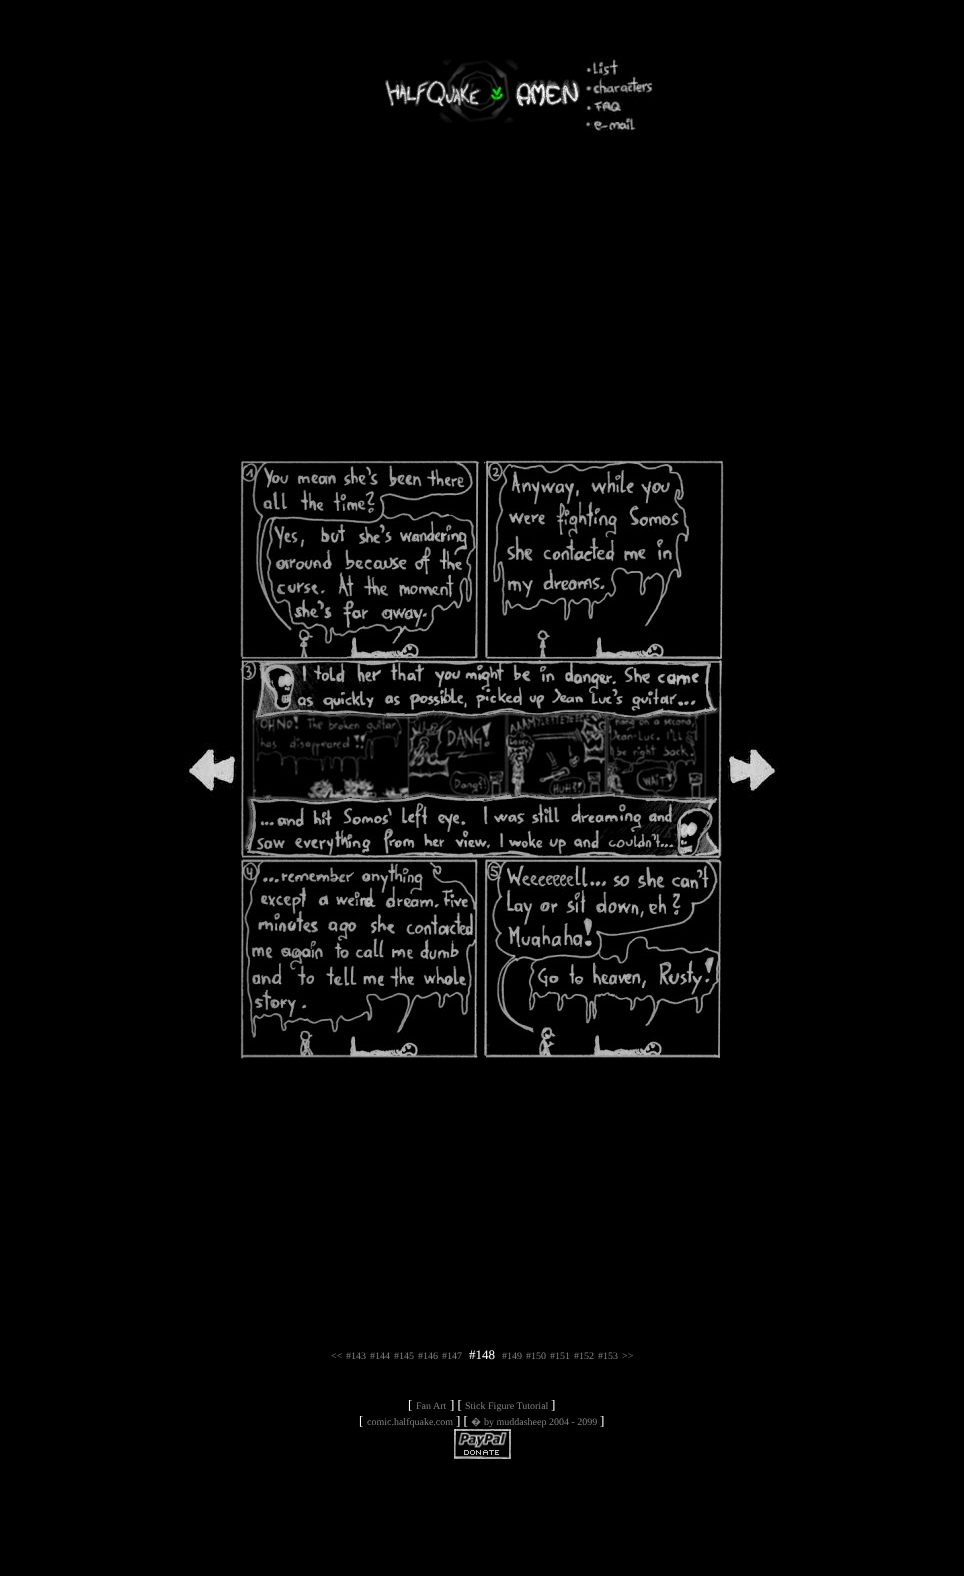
<svg xmlns="http://www.w3.org/2000/svg" xmlns:xlink="http://www.w3.org/1999/xlink" width="964" height="1576" viewBox="0 0 964 1576">
<style>
.cls-1{font:10px Liberation Serif;fill:#808080}
.cls-2{font:13px Liberation Serif;fill:#ffffff}
.cls-3{font:10px Noto Sans;fill:#808080}
</style>
<rect width="100%" height="100%" fill="#000000"/>
<image xlink:href="image0.png" x="385" y="59" width="196" height="64"/>
<image xlink:href="image1.png" x="582" y="57" width="72" height="76"/>
<image xlink:href="image2.png" x="186" y="742" width="54" height="56"/>
<image xlink:href="image3.png" x="240" y="460" width="484" height="600"/>
<image xlink:href="image4.png" x="724" y="742" width="54" height="56"/>
<image xlink:href="image5.png" x="454" y="1429" width="57" height="30"/>
<text class="cls-1" x="331" y="1359">&lt;&lt;</text>
<text class="cls-1" x="346" y="1359">#143</text>
<text class="cls-1" x="370" y="1359">#144</text>
<text class="cls-1" x="394" y="1359">#145</text>
<text class="cls-1" x="418" y="1359">#146</text>
<text class="cls-1" x="442" y="1359">#147</text>
<text class="cls-2" x="469" y="1359">#148</text>
<text class="cls-1" x="502" y="1359">#149</text>
<text class="cls-1" x="526" y="1359">#150</text>
<text class="cls-1" x="550" y="1359">#151</text>
<text class="cls-1" x="574" y="1359">#152</text>
<text class="cls-1" x="598" y="1359">#153</text>
<text class="cls-1" x="622" y="1359">&gt;&gt;</text>
<text class="cls-2" x="408" y="1409">[</text>
<text class="cls-1" x="416" y="1409">Fan Art</text>
<text class="cls-2" x="450" y="1409">] [</text>
<text class="cls-1" x="465" y="1409">Stick Figure Tutorial</text>
<text class="cls-2" x="551" y="1409">]</text>
<text class="cls-2" x="359" y="1425">[</text>
<text class="cls-1" x="367" y="1425">comic.halfquake.com</text>
<text class="cls-2" x="456" y="1425">] [</text>
<text class="cls-3" x="471" y="1425">�</text>
<text class="cls-1" x="484" y="1425">by muddasheep 2004 - 2099</text>
<text class="cls-2" x="600" y="1425">]</text>
</svg>
